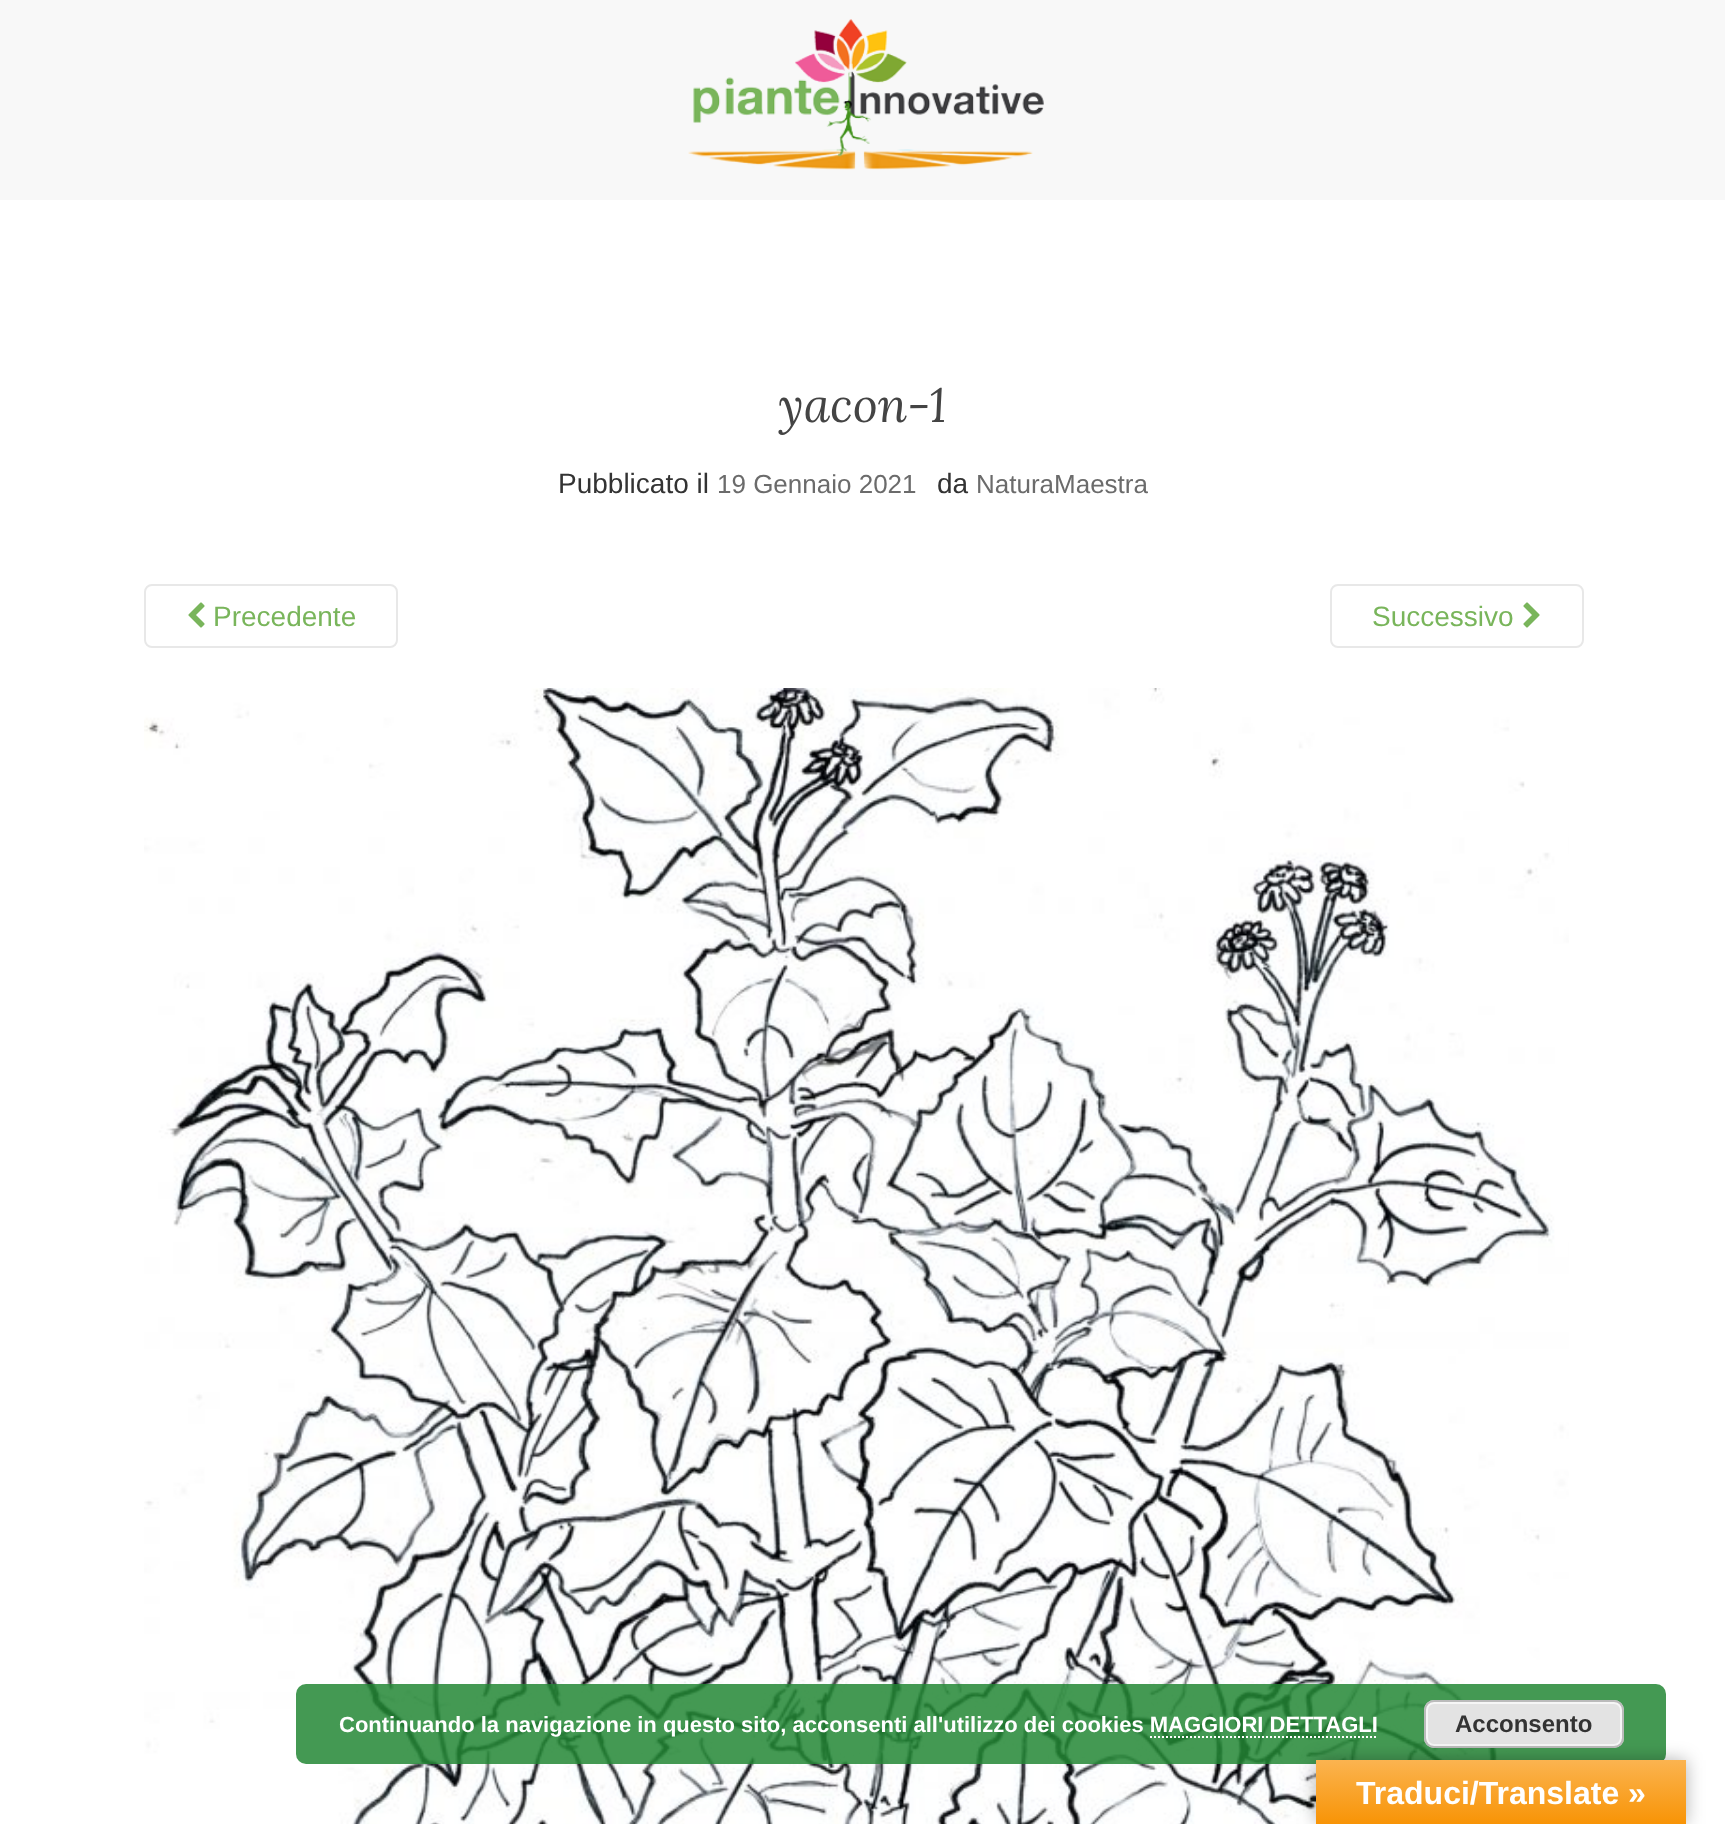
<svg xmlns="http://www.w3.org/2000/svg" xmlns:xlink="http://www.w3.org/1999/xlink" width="1725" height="1824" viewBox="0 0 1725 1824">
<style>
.cls-1{font:italic 48px Lora;fill:#444444}
.cls-2{font:28px Liberation Sans;fill:#333333}
.cls-3{font:26px Liberation Sans;fill:#6b6b6b}
.cls-4{font:28px Liberation Sans;fill:#79b55b}
.cls-5{font:bold 22px Liberation Sans;fill:#ffffff}
.cls-6{font:bold 24px Liberation Sans;fill:#333333}
.cls-7{font:bold 32px Liberation Sans;fill:#ffffff}
</style>
<defs>
<linearGradient id="g1" gradientUnits="userSpaceOnUse" x1="1501" y1="1760" x2="1501" y2="1824"><stop offset="0" stop-color="#fbb450"/><stop offset="1" stop-color="#f89406"/></linearGradient>
</defs>
<rect width="100%" height="100%" fill="#ffffff"/>
<rect fill="#f8f8f8" x="0" y="0" width="1725" height="200"/>
<image xlink:href="image0.png" x="688" y="19" width="356" height="151"/>
<rect fill="none" stroke="#e8e8e8" stroke-width="2" x="145" y="585" width="252" height="62" rx="7"/>
<image xlink:href="image1.png" x="188" y="602" width="17" height="26"/>
<rect fill="none" stroke="#e8e8e8" stroke-width="2" x="1331" y="585" width="252" height="62" rx="7"/>
<image xlink:href="image2.png" x="1523" y="602" width="17" height="26"/>
<image xlink:href="image3.png" x="144" y="688" width="1425" height="1136"/>
<rect fill="#238735" fill-opacity="0.85" x="296" y="1684" width="1370" height="80" rx="10"/>
<rect fill="#e3e3e3" x="1424" y="1700" width="200" height="48" rx="10"/>
<rect fill="none" stroke="#f6f6f6" stroke-width="2" x="1427" y="1703" width="194" height="42" rx="7"/>
<rect fill="none" stroke="#bbbbbb" stroke-width="2" x="1425" y="1701" width="198" height="46" rx="9"/>
<path fill="none" stroke="#ffffff" stroke-width="2" stroke-dasharray="2 2" d="M1150 1737H1378"/>
<rect fill="#000000" fill-opacity="0.3" filter="blur(9px)" x="1316" y="1760" width="370" height="64"/>
<rect fill="url(#g1)" x="1316" y="1760" width="370" height="64"/>
<text class="cls-1" x="779" y="422">yacon-1</text>
<text class="cls-2" x="558" y="493">Pubblicato il</text>
<text class="cls-3" x="717" y="493">19 Gennaio 2021</text>
<text class="cls-2" x="937" y="493">da</text>
<text class="cls-3" x="976" y="493">NaturaMaestra</text>
<text class="cls-4" x="213" y="626">Precedente</text>
<text class="cls-4" x="1372" y="626">Successivo</text>
<text class="cls-5" x="339" y="1732">Continuando la navigazione in questo sito, acconsenti all'utilizzo dei cookies MAGGIORI DETTAGLI</text>
<text class="cls-6" x="1455" y="1732">Acconsento</text>
<text class="cls-7" x="1356" y="1804">Traduci/Translate »</text>
</svg>
